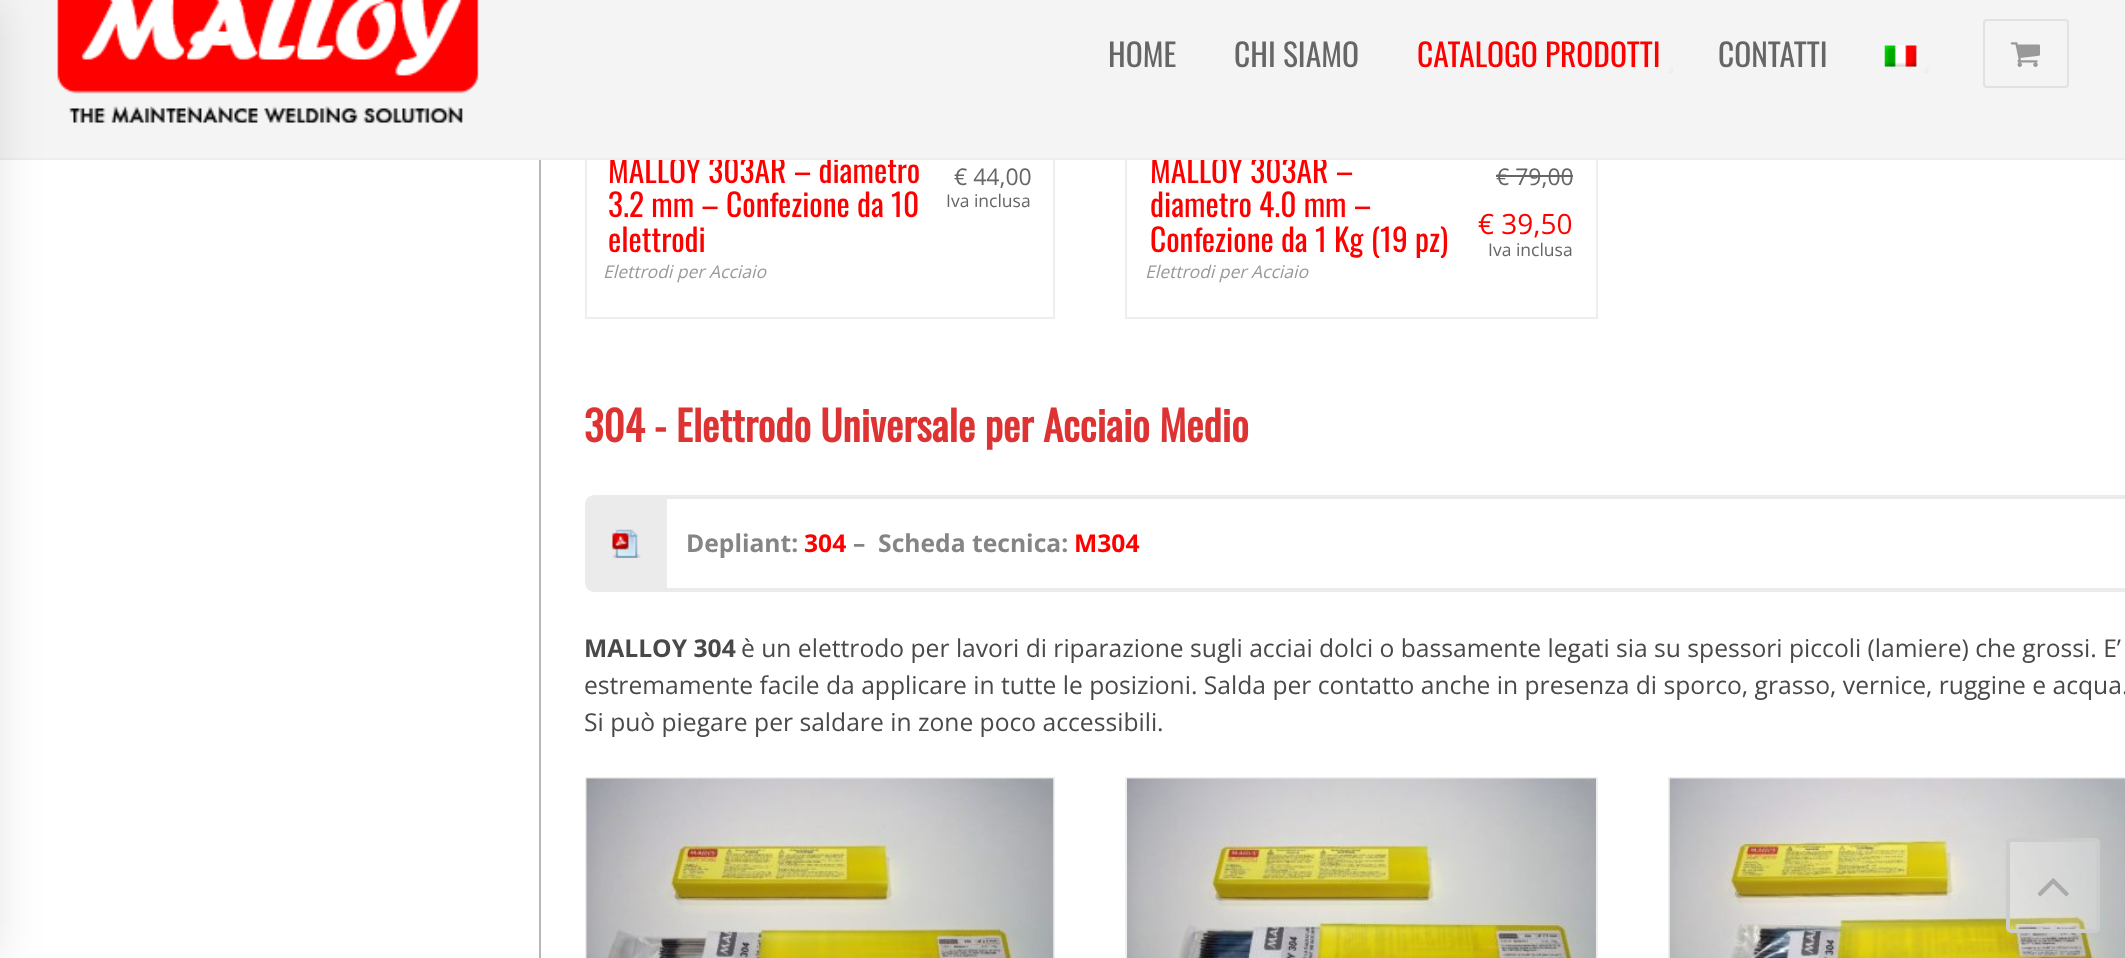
<svg xmlns="http://www.w3.org/2000/svg" xmlns:xlink="http://www.w3.org/1999/xlink" width="2125" height="958" viewBox="0 0 2125 958">
<style>
.cls-1{font:31.5px Oswald;fill:#fe0000}
.cls-2{font:23px Open Sans;fill:#666666}
.cls-3{font:28px Open Sans;fill:#fe0000}
.cls-4{font:17.5px Open Sans;fill:#666666}
.cls-5{font:italic 17.5px Open Sans;fill:#999999}
.cls-6{font:bold 41.1px Oswald;fill:#dd3333}
.cls-7{font:31.5px Oswald;fill:#666666}
.cls-8{font:bold 24.65px Open Sans;fill:#858585}
.cls-9{font:bold 24.65px Open Sans;fill:#fe0000}
.cls-10{font:bold 24.65px Open Sans;fill:#494949}
.cls-11{font:24.65px Open Sans;fill:#494949}
</style>
<defs>
<clipPath id="clip1"><rect x="586" y="135" width="468" height="182"/></clipPath>
</defs>
<rect width="100%" height="100%" fill="#ffffff"/>
<rect fill="#b7b7b7" x="539" y="160" width="2" height="798"/>
<rect fill="none" stroke="#eeeeee" stroke-width="2" x="586" y="-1" width="468" height="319"/>
<rect fill="none" stroke="#eeeeee" stroke-width="2" x="1126" y="-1" width="471" height="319"/>
<rect fill="#666666" x="1496" y="175" width="77" height="2"/>
<rect fill="none" stroke="#ebebeb" stroke-width="4" x="587" y="497" width="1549" height="93" rx="7"/>
<path fill="#ebebeb" d="M593 499H667V588H593C590 588 588 586 588 583V504C588 501 590 499 593 499Z"/>
<image xlink:href="image3.png" x="612" y="529" width="29" height="29"/>
<rect fill="none" stroke="#eeeeee" stroke-width="2" x="586" y="778" width="468" height="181"/>
<image xlink:href="image4.png" x="586" y="778" width="468" height="180"/>
<rect fill="none" stroke="#eeeeee" stroke-width="2" x="1126" y="778" width="471" height="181"/>
<image xlink:href="image5.png" x="1127" y="778" width="469" height="180"/>
<rect fill="none" stroke="#eeeeee" stroke-width="2" x="1669" y="778" width="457" height="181"/>
<image xlink:href="image6.png" x="1669" y="778" width="456" height="180"/>
<rect fill="#ffffff" fill-opacity="0.25" stroke="#cccccc" stroke-width="4" x="2008" y="840" width="90" height="91" rx="3"/>
<image xlink:href="image7.png" x="2037" y="878" width="32" height="19"/>
<text class="cls-1"><tspan x="1150" y="183">MALLOY 303AR –</tspan><tspan x="1150" y="217">diametro 4.0 mm –</tspan><tspan x="1150" y="252">Confezione da 1 Kg (19 pz)</tspan></text>
<text class="cls-2" x="1496" y="185">€ 79,00</text>
<text class="cls-3" x="1478" y="234">€ 39,50</text>
<text class="cls-4" x="1488" y="256">Iva inclusa</text>
<text class="cls-5" x="1145" y="278">Elettrodi per Acciaio</text>
<text class="cls-6" x="584" y="442">304 - Elettrodo Universale per Acciaio Medio</text>
<g clip-path="url(#clip1)">
<rect fill="none" stroke="#eeeeee" stroke-width="2" x="586" y="136" width="468" height="301"/>
</g>
<text class="cls-1" x="608" y="183">MALLOY 303AR – diametro</text>
<rect fill="#f4f4f4" x="0" y="0" width="2125" height="158"/>
<image xlink:href="image0.png" x="57" y="0" width="422" height="123"/>
<rect fill="#eeeeee" x="0" y="158" width="2125" height="2"/>
<rect fill="#000000" fill-opacity="0.1" filter="blur(22px)" x="-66" y="0" width="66" height="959"/>
<path fill="#eeeeee" d="M1928.5 66.5V73.5L1925 70Z"/>
<path fill="#eeeeee" d="M1928.5 73.5H1921.5L1925 70Z"/>
<image xlink:href="image1.png" x="1884" y="45" width="33" height="22"/>
<text class="cls-7" x="1718" y="67">CONTATTI</text>
<path fill="#eeeeee" d="M1673 66.5V73.5L1669.5 70Z"/>
<path fill="#eeeeee" d="M1673 73.5H1666L1669.5 70Z"/>
<text class="cls-1" x="1417" y="67">CATALOGO PRODOTTI</text>
<text class="cls-7" x="1234" y="67">CHI SIAMO</text>
<text class="cls-7" x="1108" y="67">HOME</text>
<rect fill="none" stroke="#e2e2e2" stroke-width="2" x="1984" y="20" width="84" height="67" rx="3"/>
<image xlink:href="image2.png" x="2010" y="42" width="30" height="25"/>
<text class="cls-4" x="946" y="207">Iva inclusa</text>
<text class="cls-2" x="954" y="185">€ 44,00</text>
<text class="cls-5" x="603" y="278">Elettrodi per Acciaio</text>
<text class="cls-1" x="608" y="252">elettrodi</text>
<text class="cls-1" x="608" y="217">3.2 mm – Confezione da 10</text>
<text class="cls-8" x="686" y="552">Depliant:</text>
<text class="cls-9" x="804" y="552">304</text>
<text class="cls-8" xml:space="preserve" x="853" y="552">–  Scheda tecnica:</text>
<text class="cls-9" x="1074" y="552">M304</text>
<text class="cls-10" x="584" y="657">MALLOY 304</text>
<text class="cls-11" x="741" y="657">è un elettrodo per lavori di riparazione sugli acciai dolci o bassamente legati sia su spessori piccoli (lamiere) che grossi. E’</text>
<text class="cls-11"><tspan x="584" y="694">estremamente facile da applicare in tutte le posizioni. Salda per contatto anche in presenza di sporco, grasso, vernice, ruggine e acqua.</tspan><tspan x="584" y="731">Si può piegare per saldare in zone poco accessibili.</tspan></text>
</svg>
